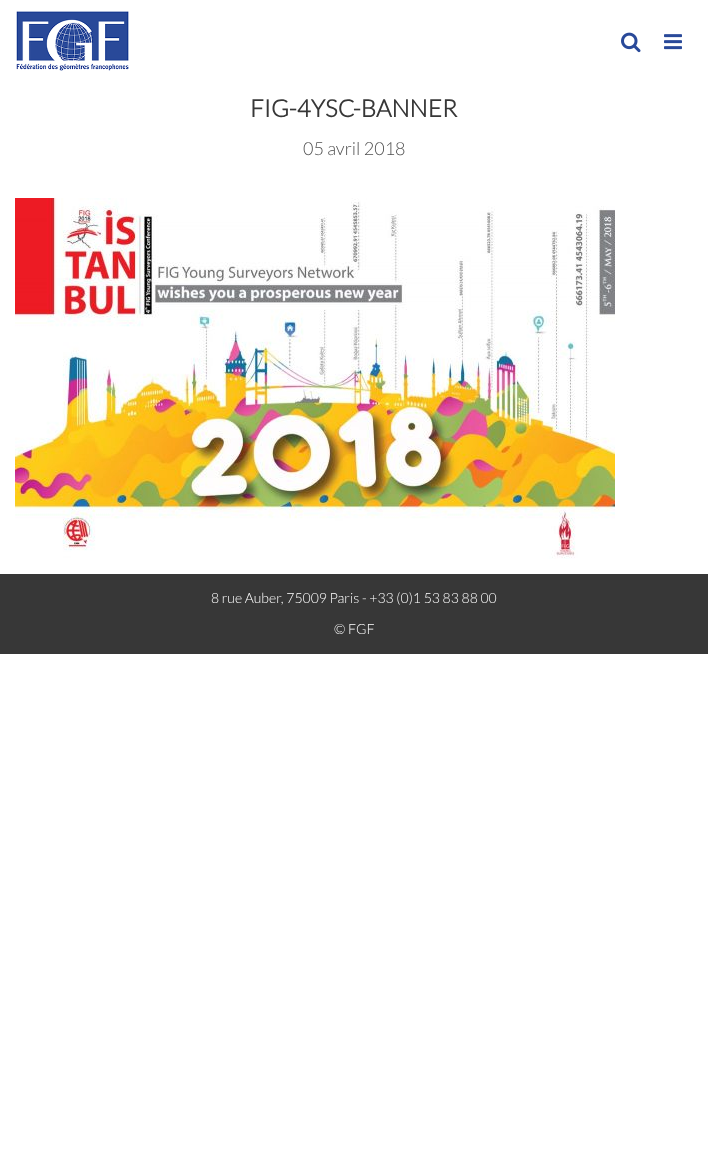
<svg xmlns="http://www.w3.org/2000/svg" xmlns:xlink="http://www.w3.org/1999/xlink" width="708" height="1175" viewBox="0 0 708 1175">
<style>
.cls-1{font:bold 24px Lato;fill:#373737}
.cls-2{font:300 18px Lato;fill:#505050}
.cls-3{font:300 14px Lato;fill:#ffffff}
</style>
<rect width="100%" height="100%" fill="#ffffff"/>
<image xlink:href="image0.png" x="16" y="11" width="113" height="60"/>
<image xlink:href="image1.png" x="621" y="32" width="20" height="21"/>
<image xlink:href="image2.png" x="664" y="34" width="18" height="16"/>
<image xlink:href="image3.png" x="15" y="198" width="600" height="361"/>
<rect fill="#373737" x="0" y="574" width="708" height="80"/>
<text class="cls-1" x="250" y="117">FIG-4YSC-BANNER</text>
<text class="cls-2" x="303" y="155">05 avril 2018</text>
<text class="cls-3" x="211" y="603">8 rue Auber, 75009 Paris - +33 (0)1 53 83 88 00</text>
<text class="cls-3" x="334" y="634">© FGF</text>
</svg>
